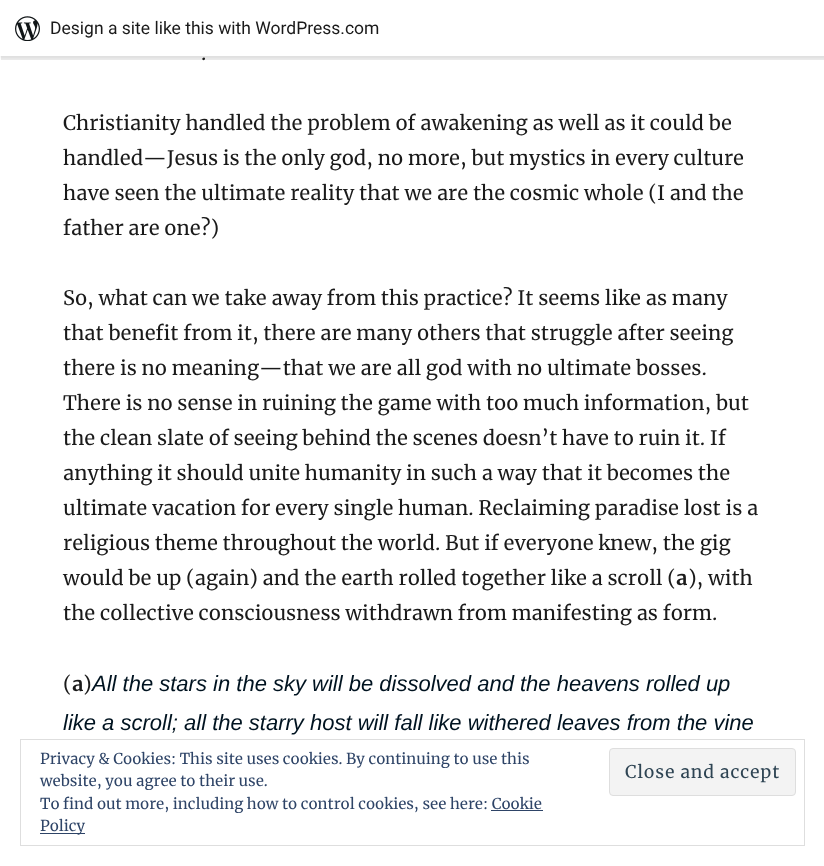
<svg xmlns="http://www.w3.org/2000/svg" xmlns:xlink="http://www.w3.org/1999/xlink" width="824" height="866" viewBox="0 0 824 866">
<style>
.cls-1{font:17.5px Roboto;fill:#1a1a1a}
.cls-2{font:20px Merriweather;fill:#1a1a1a}
.cls-3{font:bold 20px Merriweather;fill:#1a1a1a}
.cls-4{font:italic 22px Liberation Sans;fill:#001320}
.cls-5{font:15px Merriweather;fill:#2e4467}
.cls-6{font:17.5px Merriweather;letter-spacing:0.8px;fill:#2e4453}
</style>
<rect width="100%" height="100%" fill="#ffffff"/>
<rect fill="#000000" fill-opacity="0.05" filter="blur(1px)" x="0" y="1" width="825" height="57"/>
<path fill="#000000" fill-opacity="0.08" d="M1 56V60H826V4H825V56Z"/>
<rect fill="#ffffff" x="0" y="0" width="824" height="56"/>
<image xlink:href="image0.png" x="15" y="16" width="25" height="25"/>
<rect fill="none" stroke="#dedede" x="20.5" y="739.5" width="784" height="106"/>
<rect fill="#f3f3f3" stroke="#dedede" x="609.5" y="748.5" width="186" height="47" rx="3.5"/>
<rect fill="#2e4467" x="491" y="810" width="52" height="1"/>
<rect fill="#2e4467" x="40" y="833" width="45" height="1"/>
<text class="cls-1" x="50" y="34">Design a site like this with WordPress.com</text>
<text class="cls-2" x="201" y="60">.</text>
<text class="cls-2"><tspan x="63" y="130">Christianity handled the problem of awakening as well as it could be</tspan><tspan x="63" y="165">handled—Jesus is the only god, no more, but mystics in every culture</tspan><tspan x="63" y="200">have seen the ultimate reality that we are the cosmic whole (I and the</tspan><tspan x="63" y="235">father are one?)</tspan></text>
<text class="cls-2"><tspan x="63" y="305">So, what can we take away from this practice? It seems like as many</tspan><tspan x="63" y="340">that benefit from it, there are many others that struggle after seeing</tspan><tspan x="63" y="375">there is no meaning—that we are all god with no ultimate bosses.</tspan><tspan x="63" y="410">There is no sense in ruining the game with too much information, but</tspan><tspan x="63" y="445">the clean slate of seeing behind the scenes doesn’t have to ruin it. If</tspan><tspan x="63" y="480">anything it should unite humanity in such a way that it becomes the</tspan><tspan x="63" y="515">ultimate vacation for every single human. Reclaiming paradise lost is a</tspan><tspan x="63" y="550">religious theme throughout the world. But if everyone knew, the gig</tspan><tspan x="63" y="585">would be up (again) and the earth rolled together like a scroll (</tspan></text>
<text class="cls-3" x="676" y="585">a</text>
<text class="cls-2" x="688" y="585">), with</text>
<text class="cls-2" x="63" y="620">the collective consciousness withdrawn from manifesting as form.</text>
<text class="cls-2" x="63" y="691">(</text>
<text class="cls-3" x="72" y="691">a</text>
<text class="cls-2" x="83" y="691">)</text>
<text class="cls-4" x="92" y="691">All the stars in the sky will be dissolved and the heavens rolled up</text>
<text class="cls-4" x="63" y="730">like a scroll; all the starry host will fall like withered leaves from the vine</text>
<text class="cls-5"><tspan x="40" y="764">Privacy &amp; Cookies: This site uses cookies. By continuing to use this</tspan><tspan x="40" y="786">website, you agree to their use.</tspan></text>
<text class="cls-6" x="625" y="778">Close and accept</text>
<text class="cls-5"><tspan x="40" y="809">To find out more, including how to control cookies, see here: Cookie</tspan><tspan x="40" y="831">Policy</tspan></text>
</svg>
